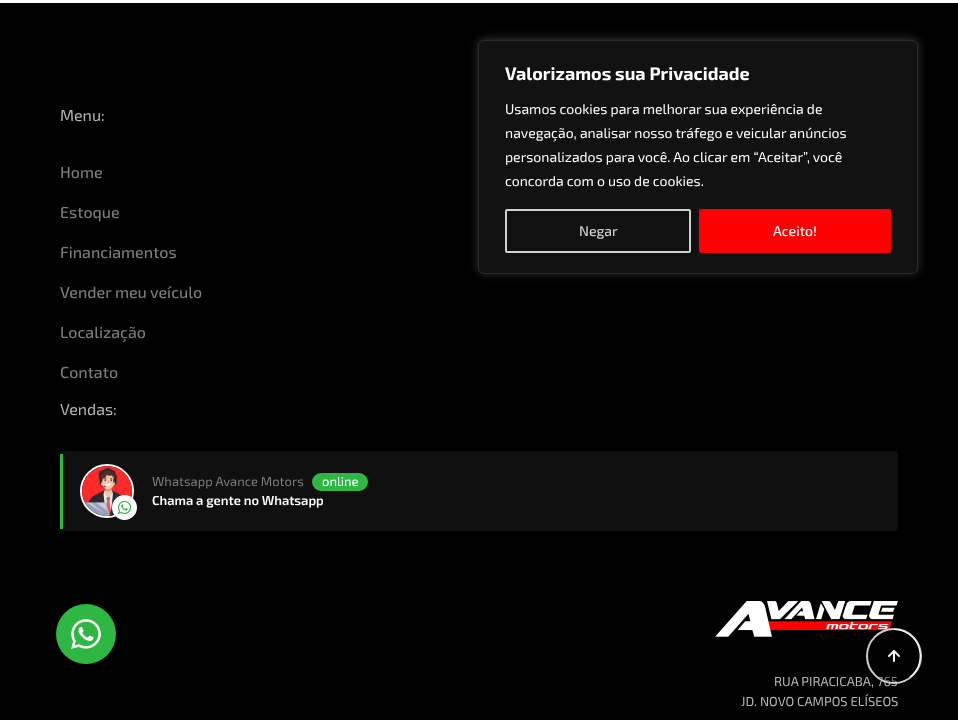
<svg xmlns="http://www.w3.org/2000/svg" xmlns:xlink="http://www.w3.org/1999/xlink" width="958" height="720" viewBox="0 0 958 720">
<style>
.cls-1{font:bold 18px 'Exo 2';fill:#ffffff}
.cls-2{font:14px 'Exo 2';fill:#ffffff}
.cls-3{font:500 14px 'Exo 2';fill:#d0d0d0}
.cls-4{font:500 14px 'Exo 2';fill:#ffffff}
.cls-5{font:16px 'Exo 2';fill:#b6b6b6}
.cls-6{font:500 16px 'Exo 2';fill:#7c7c7c}
.cls-7{font:13px 'Exo 2';fill:#7c7c7c}
.cls-8{font:13px 'Exo 2';fill:#ffffff}
.cls-9{font:600 13px 'Exo 2';fill:#ffffff}
.cls-10{font:13px 'Exo 2';fill:#b6b6b6}
</style>
<rect width="100%" height="100%" fill="#ffffff"/>
<rect fill="#000000" x="0" y="3" width="958" height="717"/>
<rect fill="#acabab" fill-opacity="0.3" filter="blur(5px)" x="478" y="39" width="440" height="234" rx="6"/>
<rect fill="#121212" stroke="#2a2a2a" x="478.5" y="40.5" width="439" height="233" rx="5.5"/>
<rect fill="none" stroke="#d0d0d0" stroke-width="2" x="506" y="210" width="184" height="42" rx="1"/>
<rect fill="#ff0001" stroke="#ff0001" stroke-width="2" x="700" y="210" width="190" height="42" rx="1"/>
<path fill="#101010" d="M65 451H893C896 451 898 453 898 456V526C898 529 896 531 893 531H65C64 531 63 529 63 526V456C63 453 64 451 65 451Z"/>
<rect fill="#2eb641" x="60" y="454" width="3" height="75"/>
<circle fill="none" stroke="#ffffff" stroke-width="2" cx="107" cy="491" r="26"/>
<image xlink:href="image0.png" x="82" y="466" width="50" height="50"/>
<rect fill="#2eb742" x="312" y="473" width="56" height="18" rx="9"/>
<circle fill="#ffffff" cx="124.5" cy="507.5" r="12.5"/>
<image xlink:href="image1.png" x="118" y="500" width="14" height="14"/>
<image xlink:href="image2.png" x="715" y="601" width="183" height="36"/>
<circle fill="#2eb742" cx="86" cy="634" r="30"/>
<image xlink:href="image3.png" x="71" y="619" width="30" height="30"/>
<text class="cls-1" x="505" y="80">Valorizamos sua Privacidade</text>
<text class="cls-2"><tspan x="505" y="114">Usamos cookies para melhorar sua experiência de</tspan><tspan x="505" y="138">navegação, analisar nosso tráfego e veicular anúncios</tspan><tspan x="505" y="162">personalizados para você. Ao clicar em “Aceitar”, você</tspan><tspan x="505" y="186">concorda com o uso de cookies.</tspan></text>
<text class="cls-3" x="579" y="236">Negar</text>
<text class="cls-4" x="773" y="236">Aceito!</text>
<text class="cls-5" x="60" y="121">Menu:</text>
<text class="cls-6" x="60" y="178">Home</text>
<text class="cls-6" x="60" y="218">Estoque</text>
<text class="cls-6" x="60" y="258">Financiamentos</text>
<text class="cls-6" x="60" y="298">Vender meu veículo</text>
<text class="cls-6" x="60" y="338">Localização</text>
<text class="cls-6" x="60" y="378">Contato</text>
<text class="cls-5" x="60" y="415">Vendas:</text>
<text class="cls-7" x="152" y="486">Whatsapp Avance Motors</text>
<text class="cls-8" x="322" y="486">online</text>
<text class="cls-9" x="152" y="505">Chama a gente no Whatsapp</text>
<text class="cls-10" x="774" y="686">RUA PIRACICABA, 765</text>
<text class="cls-10" x="741" y="706">JD. NOVO CAMPOS ELÍSEOS</text>
<circle fill="#000000" fill-opacity="0.28" stroke="#cccccc" stroke-width="2" cx="894" cy="656" r="27"/>
<path fill="none" stroke="#ffffff" stroke-width="1.1" d="M894 629.5C919.5 629.5 929.5 662 910 677"/>
<image xlink:href="image4.png" x="888" y="650" width="12" height="12"/>
</svg>
